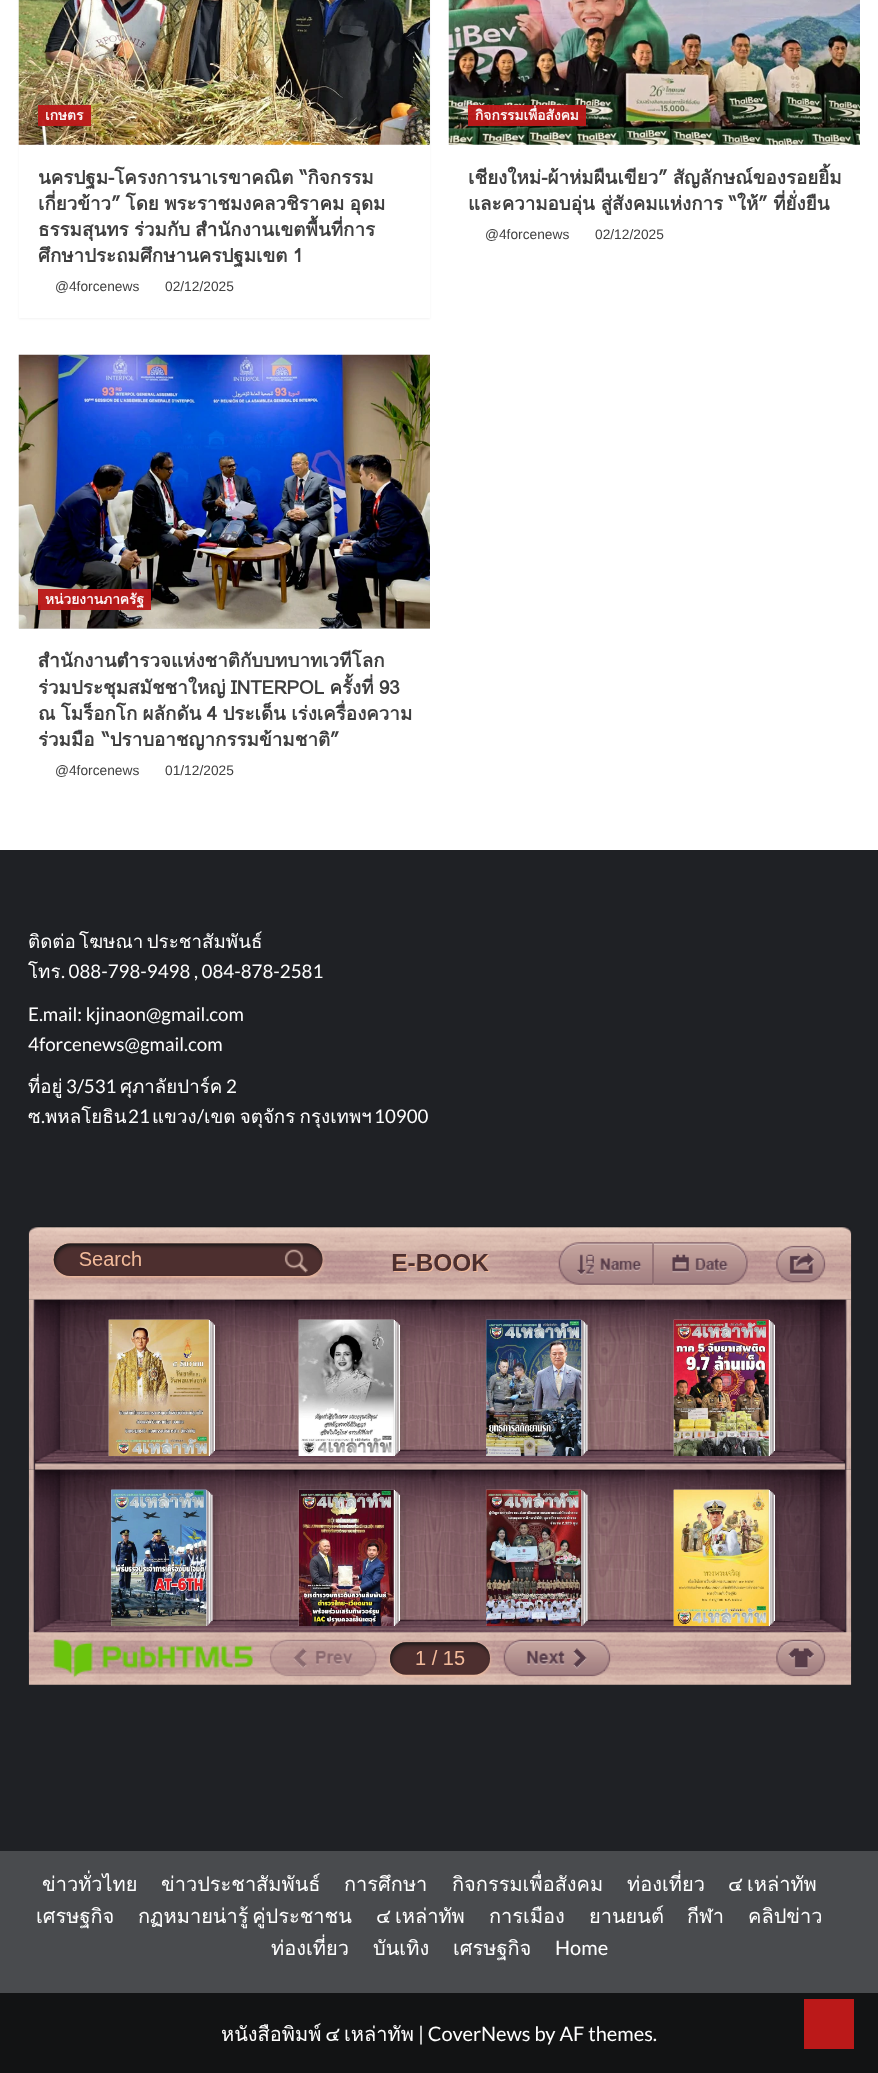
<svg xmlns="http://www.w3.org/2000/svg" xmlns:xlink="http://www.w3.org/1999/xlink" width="878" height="2073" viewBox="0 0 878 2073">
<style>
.cls-1{font:bold 13.75px Loma;fill:#fcf6f6}
.cls-2{font:bold 18.75px Loma;fill:#404040}
.cls-3{font:13.75px Liberation Sans;fill:#404040}
.cls-4{font:18.75px Loma;fill:#ffffff}
.cls-5{font:18.75px Lato;fill:#ffffff}
.cls-6{font:20px Loma;fill:#ffffff}
.cls-7{font:20px Lato;fill:#ffffff}
</style>
<rect width="100%" height="100%" fill="#ffffff"/>
<rect fill="#000000" fill-opacity="0.05" filter="blur(1px)" x="19" y="-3" width="411" height="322"/>
<rect fill="#ffffff" x="19" y="144" width="411" height="174"/>
<image xlink:href="image0.png" x="18" y="0" width="412" height="145"/>
<rect fill="#bb1919" fill-opacity="0.96" x="38" y="105" width="53" height="21"/>
<image xlink:href="image1.png" x="448" y="0" width="412" height="145"/>
<rect fill="#bb1919" fill-opacity="0.96" x="468" y="105" width="118" height="21"/>
<rect fill="#d8d8d8" x="19" y="628" width="411" height="1"/>
<image xlink:href="image2.png" x="18" y="354" width="412" height="275"/>
<rect fill="#bb1919" fill-opacity="0.96" x="38" y="589" width="113" height="21"/>
<rect fill="#1f2125" x="0" y="850" width="878" height="1001"/>
<image xlink:href="image3.png" x="28" y="1226" width="824" height="459"/>
<rect fill="#494b4e" x="0" y="1851" width="878" height="142"/>
<rect fill="#121314" x="0" y="1993" width="878" height="80"/>
<rect fill="#bb1919" x="804" y="1999" width="50" height="50"/>
<text class="cls-1" x="45" y="120">เกษตร</text>
<text class="cls-2"><tspan x="38" y="184">นครปฐม-โครงการนาเรขาคณิต “กิจกรรม</tspan><tspan x="38" y="210" word-spacing="-1">เกี่ยวข้าว” โดย พระราชมงคลวชิราคม อุดม</tspan><tspan x="38" y="236" word-spacing="-1">ธรรมสุนทร ร่วมกับ สำนักงานเขตพื้นที่การ</tspan><tspan x="38" y="262" word-spacing="-1">ศึกษาประถมศึกษานครปฐมเขต 1</tspan></text>
<text class="cls-3" x="55" y="291">@4forcenews</text>
<text class="cls-3" x="165" y="291">02/12/2025</text>
<text class="cls-1" x="475" y="120">กิจกรรมเพื่อสังคม</text>
<text class="cls-2"><tspan x="468" y="184" word-spacing="-1">เชียงใหม่-ผ้าห่มผืนเขียว” สัญลักษณ์ของรอยยิ้ม</tspan><tspan x="468" y="210" word-spacing="-0.5">และความอบอุ่น สู่สังคมแห่งการ “ให้” ที่ยั่งยืน</tspan></text>
<text class="cls-3" x="485" y="239">@4forcenews</text>
<text class="cls-3" x="595" y="239">02/12/2025</text>
<text class="cls-1" x="45" y="604">หน่วยงานภาครัฐ</text>
<text class="cls-2"><tspan x="38" y="667">สำนักงานตำรวจแห่งชาติกับบทบาทเวทีโลก</tspan><tspan x="38" y="694" word-spacing="-1">ร่วมประชุมสมัชชาใหญ่ INTERPOL ครั้งที่ 93</tspan><tspan x="38" y="720" word-spacing="-1">ณ โมร็อกโก ผลักดัน 4 ประเด็น เร่งเครื่องความ</tspan><tspan x="38" y="746" word-spacing="1">ร่วมมือ “ปราบอาชญากรรมข้ามชาติ”</tspan></text>
<text class="cls-3" x="55" y="775">@4forcenews</text>
<text class="cls-3" x="165" y="775">01/12/2025</text>
<text class="cls-4"><tspan x="28" y="948" word-spacing="-3">ติดต่อ โฆษณา ประชาสัมพันธ์</tspan><tspan x="28" y="978">โทร</tspan></text>
<text class="cls-5" x="61" y="978">. 088-798-9498 , 084-878-2581</text>
<text class="cls-5"><tspan x="28" y="1021">E.mail: kjinaon@gmail.com</tspan><tspan x="28" y="1051">4forcenews@gmail.com</tspan></text>
<text class="cls-4" x="28" y="1093">ที่อยู่</text>
<text class="cls-5" x="66" y="1093">3/531</text>
<text class="cls-4" x="120" y="1093">ศุภาลัยปาร์ค</text>
<text class="cls-5" x="226" y="1093">2</text>
<text class="cls-4" x="28" y="1123">ซ</text>
<text class="cls-5" x="41" y="1123">.</text>
<text class="cls-4" x="45" y="1123">พหลโยธิน</text>
<text class="cls-5" x="128" y="1123">21</text>
<text class="cls-4" x="152" y="1123">แขวง</text>
<text class="cls-5" x="197" y="1123">/</text>
<text class="cls-4" x="204" y="1123" word-spacing="-2">เขต จตุจักร กรุงเทพฯ</text>
<text class="cls-5" x="374" y="1123">10900</text>
<text class="cls-6" x="42" y="1891">ข่าวทั่วไทย</text>
<text class="cls-6" x="161" y="1891">ข่าวประชาสัมพันธ์</text>
<text class="cls-6" x="344" y="1891">การศึกษา</text>
<text class="cls-6" x="452" y="1891">กิจกรรมเพื่อสังคม</text>
<text class="cls-6" x="627" y="1891">ท่องเที่ยว</text>
<text class="cls-6" x="728" y="1891" word-spacing="-3">๔ เหล่าทัพ</text>
<text class="cls-6" x="36" y="1923">เศรษฐกิจ</text>
<text class="cls-6" x="138" y="1923" word-spacing="-3">กฏหมายน่ารู้ คู่ประชาชน</text>
<text class="cls-6" x="376" y="1923" word-spacing="-3">๔ เหล่าทัพ</text>
<text class="cls-6" x="489" y="1923">การเมือง</text>
<text class="cls-6" x="589" y="1923">ยานยนต์</text>
<text class="cls-6" x="687" y="1923">กีฬา</text>
<text class="cls-6" x="748" y="1923">คลิปข่าว</text>
<text class="cls-6" x="271" y="1955">ท่องเที่ยว</text>
<text class="cls-6" x="373" y="1955">บันเทิง</text>
<text class="cls-6" x="453" y="1955">เศรษฐกิจ</text>
<text class="cls-7" x="555" y="1955">Home</text>
<text class="cls-6" x="221" y="2041" word-spacing="-3">หนังสือพิมพ์ ๔ เหล่าทัพ</text>
<text class="cls-7" x="418" y="2041">| CoverNews by AF themes.</text>
</svg>
